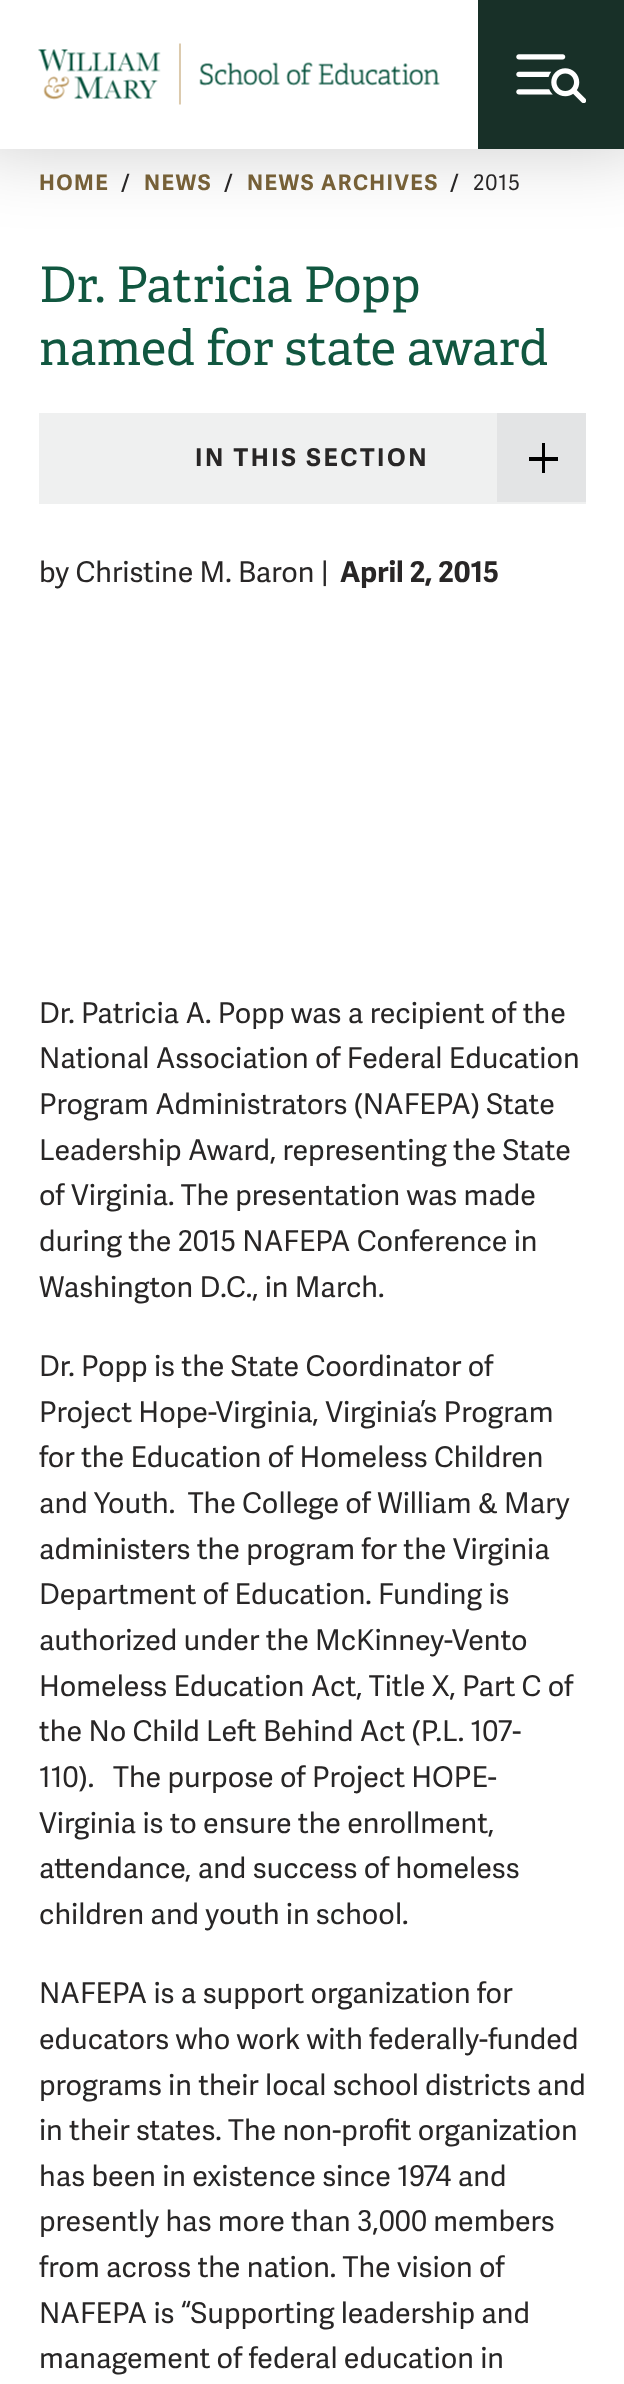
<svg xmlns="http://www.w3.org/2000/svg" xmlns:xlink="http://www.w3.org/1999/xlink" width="624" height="2384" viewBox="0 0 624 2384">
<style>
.cls-1{font:bold 21.5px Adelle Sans;letter-spacing:1.5px;fill:#766037}
.cls-2{font:600 21.5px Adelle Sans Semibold;letter-spacing:1px;fill:#282626}
.cls-3{font:21.5px Adelle Sans;letter-spacing:1px;fill:#282626}
.cls-4{font:49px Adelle;fill:#115740}
.cls-5{font:bold 24.5px Adelle Sans;letter-spacing:2.6px;fill:#282626}
.cls-6{font:28.6px Adelle Sans;fill:#282626}
.cls-7{font:bold 28.6px Adelle Sans;fill:#282626}
</style>
<rect width="100%" height="100%" fill="#ffffff"/>
<rect fill="#000000" fill-opacity="0.2" filter="blur(38.5px)" x="-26" y="-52" width="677" height="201"/>
<rect fill="#ffffff" x="0" y="0" width="478" height="149"/>
<image xlink:href="image0.png" x="38" y="43" width="402" height="62"/>
<rect fill="#183028" x="478" y="0" width="146" height="149"/>
<image xlink:href="image1.png" x="516" y="54" width="70" height="49"/>
<rect fill="#eff0f0" x="39" y="413" width="547" height="91"/>
<rect fill="#e3e4e5" x="497" y="413" width="89" height="89"/>
<rect fill="#000000" x="542" y="443" width="3" height="30"/>
<rect fill="#000000" x="529" y="457" width="29" height="4"/>
<text class="cls-1" x="39" y="190">HOME</text>
<text class="cls-2" x="121" y="190">/</text>
<text class="cls-1" x="144" y="190">NEWS</text>
<text class="cls-2" x="224" y="190">/</text>
<text class="cls-1" x="247" y="190">NEWS ARCHIVES</text>
<text class="cls-2" x="450" y="190">/</text>
<text class="cls-3" x="473" y="190">2015</text>
<text class="cls-4"><tspan x="39" y="302">Dr. Patricia Popp</tspan><tspan x="39" y="365">named for state award</tspan></text>
<text class="cls-5" x="195" y="466">IN THIS SECTION</text>
<text class="cls-6" x="39" y="582">by Christine M. Baron |</text>
<text class="cls-7" x="340" y="582">April 2, 2015</text>
<text class="cls-6"><tspan x="39" y="1023">Dr. Patricia A. Popp was a recipient of the</tspan><tspan x="39" y="1068">National Association of Federal Education</tspan><tspan x="39" y="1114">Program Administrators (NAFEPA) State</tspan><tspan x="39" y="1160">Leadership Award, representing the State</tspan><tspan x="39" y="1205">of Virginia. The presentation was made</tspan><tspan x="39" y="1251">during the 2015 NAFEPA Conference in</tspan><tspan x="39" y="1297">Washington D.C., in March.</tspan></text>
<text class="cls-6" xml:space="preserve"><tspan x="39" y="1376">Dr. Popp is the State Coordinator of</tspan><tspan x="39" y="1422">Project Hope-Virginia, Virginia’s Program</tspan><tspan x="39" y="1467">for the Education of Homeless Children</tspan><tspan x="39" y="1513">and Youth.  The College of William &amp; Mary</tspan><tspan x="39" y="1559">administers the program for the Virginia</tspan><tspan x="39" y="1604">Department of Education. Funding is</tspan><tspan x="39" y="1650">authorized under the McKinney-Vento</tspan><tspan x="39" y="1696">Homeless Education Act, Title X, Part C of</tspan><tspan x="39" y="1741">the No Child Left Behind Act (P.L. 107-</tspan><tspan x="39" y="1787">110).   The purpose of Project HOPE-</tspan><tspan x="39" y="1833">Virginia is to ensure the enrollment,</tspan><tspan x="39" y="1878">attendance, and success of homeless</tspan><tspan x="39" y="1924">children and youth in school.</tspan></text>
<text class="cls-6"><tspan x="39" y="2003">NAFEPA is a support organization for</tspan><tspan x="39" y="2049">educators who work with federally-funded</tspan><tspan x="39" y="2095">programs in their local school districts and</tspan><tspan x="39" y="2140">in their states. The non-profit organization</tspan><tspan x="39" y="2186">has been in existence since 1974 and</tspan><tspan x="39" y="2231">presently has more than 3,000 members</tspan><tspan x="39" y="2277">from across the nation. The vision of</tspan><tspan x="39" y="2323">NAFEPA is “Supporting leadership and</tspan><tspan x="39" y="2368">management of federal education in</tspan></text>
</svg>
